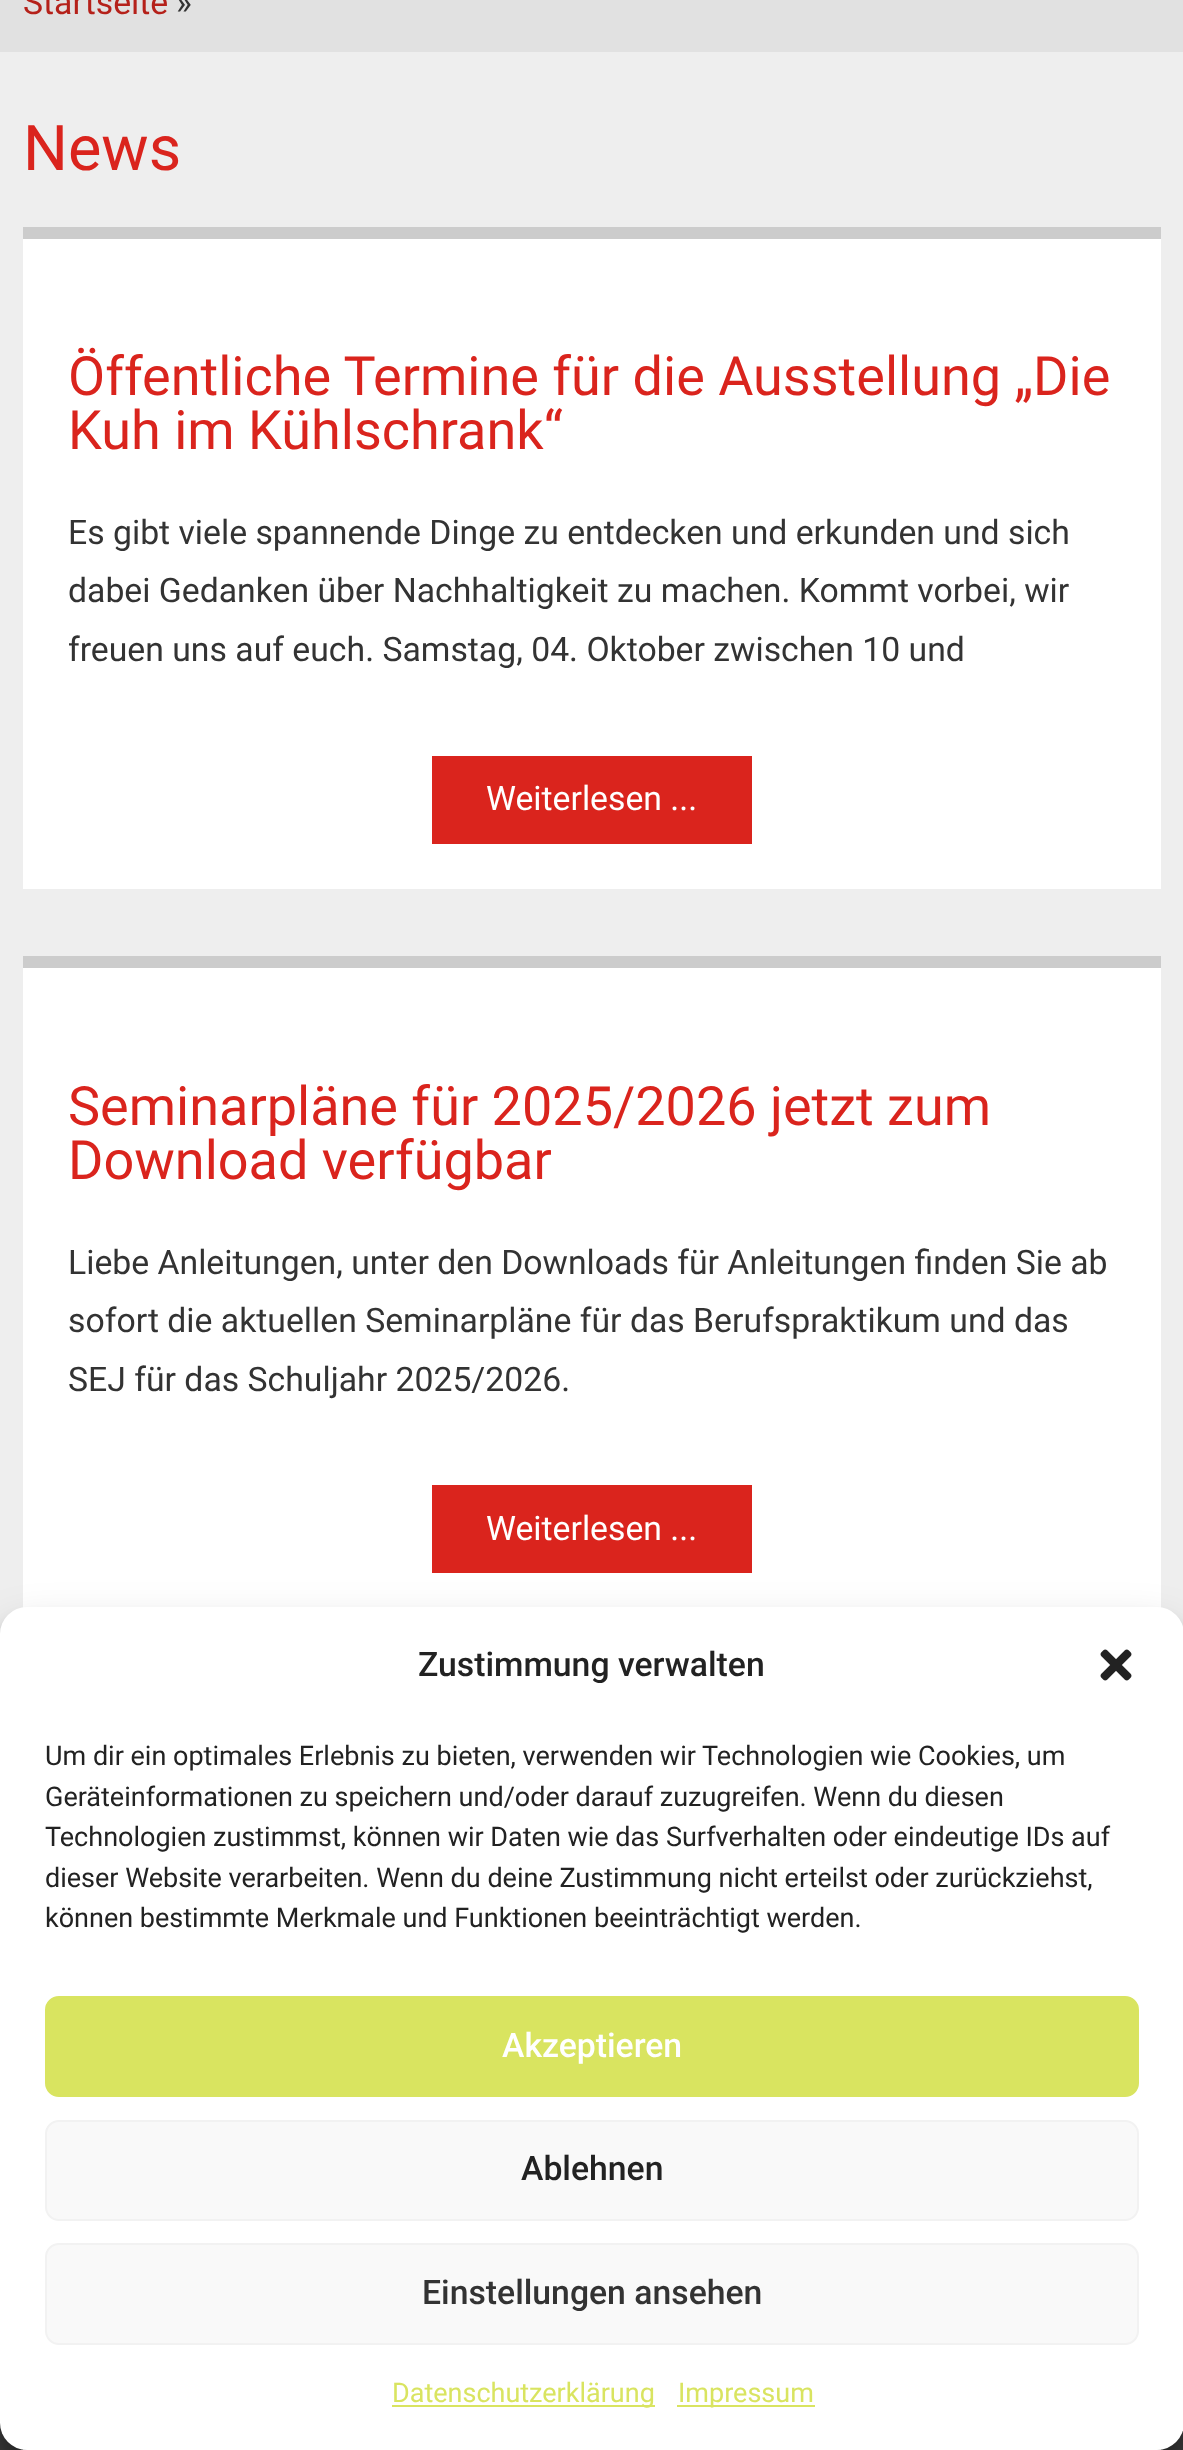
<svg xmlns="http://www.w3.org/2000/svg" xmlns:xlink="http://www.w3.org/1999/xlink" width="1183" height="2450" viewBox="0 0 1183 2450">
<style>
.cls-1{font:33.75px Roboto;fill:#b5211a}
.cls-2{font:33.75px Roboto;fill:#333333}
.cls-3{font:63px Roboto;fill:#da241d}
.cls-4{font:54px Roboto;fill:#da241d}
.cls-5{font:33.75px Roboto;fill:#ffffff}
.cls-6{font:500 33.75px Roboto;fill:#222222}
.cls-7{font:27px Roboto;fill:#222222}
.cls-8{font:500 33.75px Roboto;fill:#ffffff}
.cls-9{font:500 33.75px Roboto;fill:#333333}
.cls-10{font:27px Roboto;fill:#d9e460}
</style>
<rect width="100%" height="100%" fill="#eeeeee"/>
<rect fill="#e1e1e1" x="0" y="0" width="1183" height="52"/>
<rect fill="#ffffff" x="23" y="239" width="1138" height="650"/>
<rect fill="#cccccc" x="23" y="227" width="1138" height="12"/>
<rect fill="#da241d" x="432" y="756" width="320" height="88"/>
<rect fill="#ffffff" x="23" y="968" width="1138" height="640"/>
<rect fill="#cccccc" x="23" y="956" width="1138" height="12"/>
<rect fill="#da241d" x="432" y="1485" width="320" height="88"/>
<rect fill="#3b3b3b" x="0" y="2423" width="1183" height="27"/>
<image xlink:href="image1.png" x="23" y="2449" width="1138" height="1"/>
<image xlink:href="image2.png" x="1157" y="2449" width="4" height="1"/>
<rect fill="#000000" fill-opacity="0.23" filter="blur(7px)" x="0" y="1620" width="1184" height="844" rx="27"/>
<rect fill="#000000" fill-opacity="0.19" filter="blur(22.5px)" x="0" y="1629" width="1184" height="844" rx="27"/>
<rect fill="#ffffff" x="0" y="1607" width="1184" height="843" rx="27"/>
<image xlink:href="image0.png" x="1100" y="1649" width="32" height="32"/>
<rect fill="#d9e460" stroke="#d9e460" stroke-width="2" x="46" y="1997" width="1092" height="99" rx="13"/>
<rect fill="#f9f9f9" stroke="#f2f2f2" stroke-width="2" x="46" y="2121" width="1092" height="99" rx="13"/>
<rect fill="#f9f9f9" stroke="#f2f2f2" stroke-width="2" x="46" y="2244" width="1092" height="100" rx="13"/>
<rect fill="#d9e460" x="392" y="2405" width="263" height="2"/>
<rect fill="#d9e460" x="677" y="2405" width="138" height="2"/>
<text class="cls-1" x="23" y="14">Startseite</text>
<text class="cls-2" x="176" y="14">»</text>
<text class="cls-3" x="23" y="170">News</text>
<text class="cls-4"><tspan x="68" y="395">Öffentliche Termine für die Ausstellung „Die</tspan><tspan x="68" y="449">Kuh im Kühlschrank“</tspan></text>
<text class="cls-2"><tspan x="68" y="544">Es gibt viele spannende Dinge zu entdecken und erkunden und sich</tspan><tspan x="68" y="602">dabei Gedanken über Nachhaltigkeit zu machen. Kommt vorbei, wir</tspan><tspan x="68" y="661">freuen uns auf euch. Samstag, 04. Oktober zwischen 10 und</tspan></text>
<text class="cls-5" x="486" y="810">Weiterlesen ...</text>
<text class="cls-4"><tspan x="68" y="1125">Seminarpläne für 2025/2026 jetzt zum</tspan><tspan x="68" y="1179">Download verfügbar</tspan></text>
<text class="cls-2"><tspan x="68" y="1274">Liebe Anleitungen, unter den Downloads für Anleitungen finden Sie ab</tspan><tspan x="68" y="1332">sofort die aktuellen Seminarpläne für das Berufspraktikum und das</tspan><tspan x="68" y="1391">SEJ für das Schuljahr 2025/2026.</tspan></text>
<text class="cls-5" x="486" y="1540">Weiterlesen ...</text>
<text class="cls-6" x="418" y="1676">Zustimmung verwalten</text>
<text class="cls-7"><tspan x="45" y="1765">Um dir ein optimales Erlebnis zu bieten, verwenden wir Technologien wie Cookies, um</tspan><tspan x="45" y="1806">Geräteinformationen zu speichern und/oder darauf zuzugreifen. Wenn du diesen</tspan><tspan x="45" y="1846">Technologien zustimmst, können wir Daten wie das Surfverhalten oder eindeutige IDs auf</tspan><tspan x="45" y="1887">dieser Website verarbeiten. Wenn du deine Zustimmung nicht erteilst oder zurückziehst,</tspan><tspan x="45" y="1927">können bestimmte Merkmale und Funktionen beeinträchtigt werden.</tspan></text>
<text class="cls-8" x="502" y="2057">Akzeptieren</text>
<text class="cls-6" x="521" y="2180">Ablehnen</text>
<text class="cls-9" x="422" y="2304">Einstellungen ansehen</text>
<text class="cls-10" x="392" y="2402">Datenschutzerklärung</text>
<text class="cls-10" x="678" y="2402">Impressum</text>
</svg>
